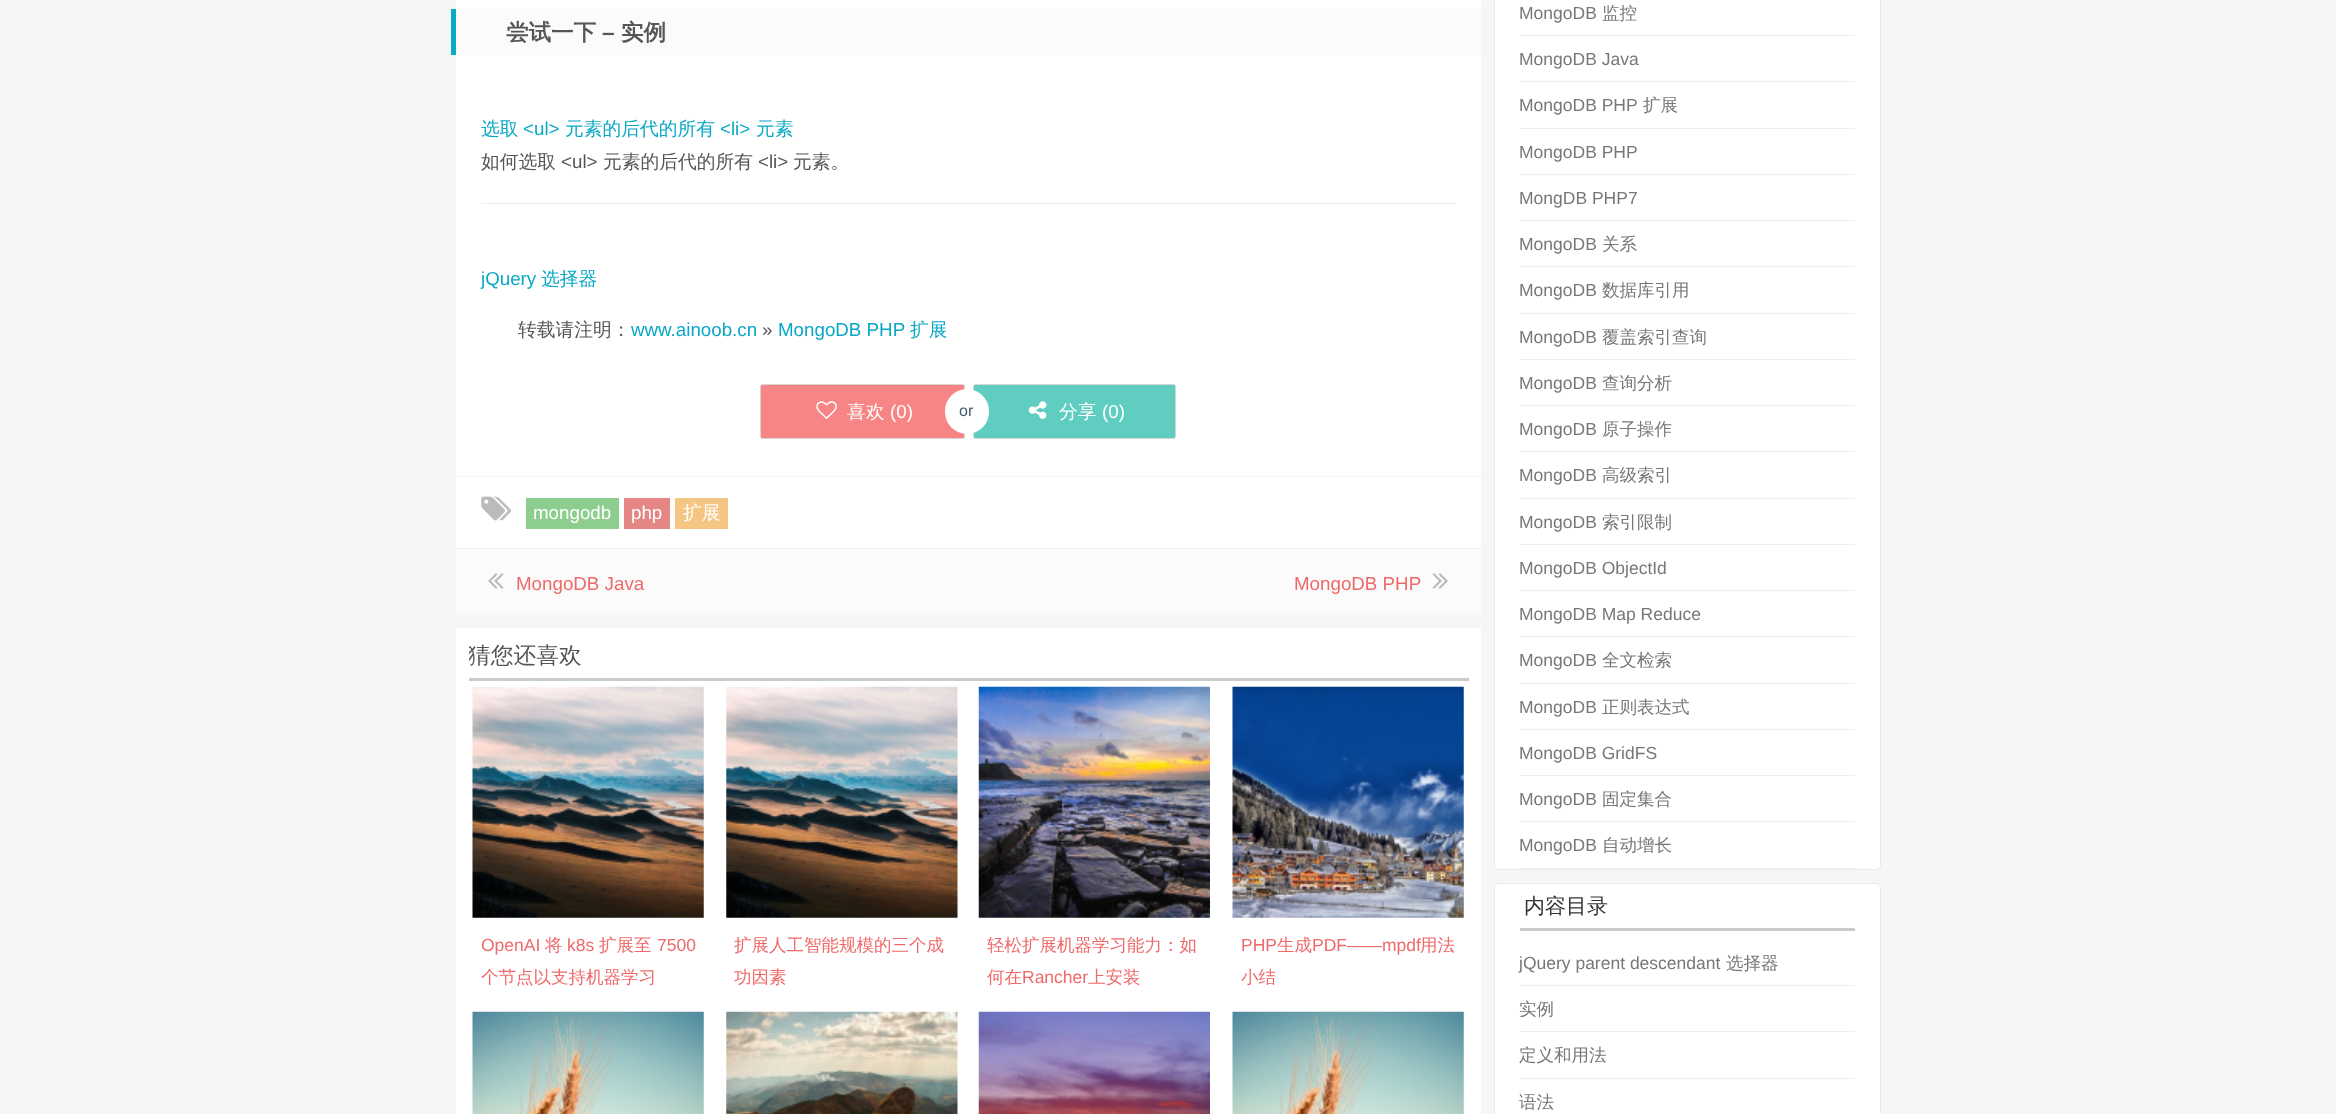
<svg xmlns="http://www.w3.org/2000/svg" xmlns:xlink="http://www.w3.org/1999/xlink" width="2336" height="1114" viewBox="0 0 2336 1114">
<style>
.cls-1{font:bold 22.5px WenQuanYi Zen Hei;fill:#555555}
.cls-2{font:bold 22.5px Liberation Sans;fill:#555555}
.cls-3{font:500 18.75px WenQuanYi Zen Hei;fill:#09a8c5}
.cls-4{font:18.75px Liberation Sans;fill:#09a8c5}
.cls-5{font:500 18.75px WenQuanYi Zen Hei;fill:#555555}
.cls-6{font:18.75px Liberation Sans;fill:#555555}
.cls-7{font:500 18.75px WenQuanYi Zen Hei;fill:#ffffff}
.cls-8{font:18.75px Liberation Sans;fill:#ffffff}
.cls-9{font:16px Liberation Sans;fill:#455670}
.cls-10{font:18.75px Liberation Sans;fill:#f0696a}
.cls-11{font:500 22.75px WenQuanYi Zen Hei;fill:#555555}
.cls-12{font:17.5px Liberation Sans;fill:#f0696a}
.cls-13{font:500 17.5px WenQuanYi Zen Hei;fill:#f0696a}
.cls-14{font:17.5px Liberation Sans;fill:#777777}
.cls-15{font:500 17.5px WenQuanYi Zen Hei;fill:#777777}
.cls-16{font:500 21px WenQuanYi Zen Hei;fill:#333333}
</style>
<defs>
<clipPath id="clip1"><rect x="469" y="628" width="1000" height="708"/></clipPath>
</defs>
<rect width="100%" height="100%" fill="#f6f6f6"/>
<rect fill="#ffffff" x="456" y="0" width="1025" height="476"/>
<rect fill="#fbfbfb" x="456" y="9" width="1025" height="46"/>
<rect fill="#09a8c5" x="451" y="9" width="5" height="46"/>
<rect fill="#eeeeee" x="481" y="203" width="975" height="1"/>
<rect fill="#f78585" stroke="#d6d6d6" x="760.5" y="384.5" width="204" height="54" rx="2"/>
<image xlink:href="image0.png" x="816" y="401" width="21" height="18"/>
<rect fill="#5fcec0" stroke="#d6d6d6" x="973.5" y="384.5" width="202" height="54" rx="2"/>
<rect fill="#ffffff" x="945" y="389" width="44" height="45" rx="22"/>
<image xlink:href="image1.png" x="1028" y="401" width="19" height="18"/>
<rect fill="#ffffff" x="456" y="477" width="1025" height="71"/>
<image xlink:href="image2.png" x="481" y="496" width="30" height="25"/>
<rect fill="#8dcd8d" x="526" y="498" width="93" height="31"/>
<rect fill="#e48784" x="624" y="498" width="46" height="31"/>
<rect fill="#f5c683" x="675" y="498" width="53" height="31"/>
<rect fill="#fbfbfb" x="456" y="549" width="1025" height="66"/>
<rect fill="#f2f2f2" x="456" y="548" width="1025" height="1"/>
<image xlink:href="image3.png" x="488" y="573" width="16" height="16"/>
<image xlink:href="image4.png" x="1432" y="573" width="16" height="16"/>
<rect fill="#ffffff" x="456" y="628" width="1025" height="486"/>
<rect fill="#cbcbcb" x="469" y="678" width="1000" height="3"/>
<image xlink:href="image5.png" x="472" y="686" width="232" height="232"/>
<image xlink:href="image6.png" x="726" y="686" width="232" height="232"/>
<image xlink:href="image7.png" x="978" y="686" width="232" height="232"/>
<image xlink:href="image8.png" x="1232" y="686" width="232" height="232"/>
<image xlink:href="image9.png" x="472" y="1011" width="232" height="103"/>
<image xlink:href="image10.png" x="726" y="1011" width="232" height="103"/>
<image xlink:href="image11.png" x="978" y="1011" width="232" height="103"/>
<image xlink:href="image12.png" x="1232" y="1011" width="232" height="103"/>
<rect fill="#ffffff" stroke="#eaeaea" x="1494.5" y="-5.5" width="386" height="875" rx="4.5"/>
<rect fill="#eeeeee" x="1520" y="35" width="335" height="1"/>
<rect fill="#eeeeee" x="1520" y="81" width="335" height="1"/>
<rect fill="#eeeeee" x="1520" y="128" width="335" height="1"/>
<rect fill="#eeeeee" x="1520" y="174" width="335" height="1"/>
<rect fill="#eeeeee" x="1520" y="220" width="335" height="1"/>
<rect fill="#eeeeee" x="1520" y="266" width="335" height="1"/>
<rect fill="#eeeeee" x="1520" y="313" width="335" height="1"/>
<rect fill="#eeeeee" x="1520" y="359" width="335" height="1"/>
<rect fill="#eeeeee" x="1520" y="405" width="335" height="1"/>
<rect fill="#eeeeee" x="1520" y="451" width="335" height="1"/>
<rect fill="#eeeeee" x="1520" y="498" width="335" height="1"/>
<rect fill="#eeeeee" x="1520" y="544" width="335" height="1"/>
<rect fill="#eeeeee" x="1520" y="590" width="335" height="1"/>
<rect fill="#eeeeee" x="1520" y="636" width="335" height="1"/>
<rect fill="#eeeeee" x="1520" y="683" width="335" height="1"/>
<rect fill="#eeeeee" x="1520" y="729" width="335" height="1"/>
<rect fill="#eeeeee" x="1520" y="775" width="335" height="1"/>
<rect fill="#eeeeee" x="1520" y="821" width="335" height="1"/>
<rect fill="#eeeeee" x="1520" y="868" width="335" height="1"/>
<rect fill="#ffffff" stroke="#eaeaea" x="1494.5" y="883.5" width="386" height="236" rx="4.5"/>
<rect fill="#cbcbcb" x="1520" y="928" width="335" height="3"/>
<rect fill="#eeeeee" x="1520" y="985" width="335" height="1"/>
<rect fill="#eeeeee" x="1520" y="1031" width="335" height="1"/>
<rect fill="#eeeeee" x="1520" y="1078" width="335" height="1"/>
<text class="cls-1" x="506" y="40">尝试一下</text>
<text class="cls-2" x="602" y="40">–</text>
<text class="cls-1" x="621" y="40">实例</text>
<text class="cls-3" x="481" y="135">选取</text>
<text class="cls-4" x="523" y="135">&lt;ul&gt;</text>
<text class="cls-3" x="565" y="135">元素的后代的所有</text>
<text class="cls-4" x="720" y="135">&lt;li&gt;</text>
<text class="cls-3" x="756" y="135">元素</text>
<text class="cls-5" x="481" y="168">如何选取</text>
<text class="cls-6" x="561" y="168">&lt;ul&gt;</text>
<text class="cls-5" x="603" y="168">元素的后代的所有</text>
<text class="cls-6" x="758" y="168">&lt;li&gt;</text>
<text class="cls-5" x="793" y="168">元素。</text>
<text class="cls-4" x="481" y="285">jQuery</text>
<text class="cls-3" x="541" y="285">选择器</text>
<text class="cls-5" x="518" y="336">转载请注明：</text>
<text class="cls-4" x="631" y="336">www.ainoob.cn</text>
<text class="cls-6" x="762" y="336">»</text>
<text class="cls-4" x="778" y="336">MongoDB PHP</text>
<text class="cls-3" x="910" y="336">扩展</text>
<text class="cls-7" x="847" y="418">喜欢</text>
<text class="cls-8" x="890" y="418">(0)</text>
<text class="cls-9" x="959" y="416">or</text>
<text class="cls-7" x="1059" y="418">分享</text>
<text class="cls-8" x="1102" y="418">(0)</text>
<text class="cls-8" x="533" y="519">mongodb</text>
<text class="cls-8" x="631" y="519">php</text>
<text class="cls-7" x="683" y="519">扩展</text>
<text class="cls-10" x="516" y="590">MongoDB Java</text>
<text class="cls-10" x="1294" y="590">MongoDB PHP</text>
<g clip-path="url(#clip1)">
<text class="cls-11" x="468" y="663">猜您还喜欢</text>
</g>
<text class="cls-12" x="481" y="951">OpenAI</text>
<text class="cls-13" x="545" y="951">将</text>
<text class="cls-12" x="567" y="951">k8s</text>
<text class="cls-13" x="599" y="951">扩展至</text>
<text class="cls-12" x="657" y="951">7500</text>
<text class="cls-13" x="481" y="983">个节点以支持机器学习</text>
<text class="cls-13"><tspan x="734" y="951">扩展人工智能规模的三个成</tspan><tspan x="734" y="983">功因素</tspan></text>
<text class="cls-13"><tspan x="987" y="951">轻松扩展机器学习能力：如</tspan><tspan x="987" y="983">何在</tspan></text>
<text class="cls-12" x="1022" y="983">Rancher</text>
<text class="cls-13" x="1088" y="983">上安装</text>
<text class="cls-12" x="1241" y="951">PHP</text>
<text class="cls-13" x="1277" y="951">生成</text>
<text class="cls-12" x="1312" y="951">PDF——mpdf</text>
<text class="cls-13" x="1420" y="951">用法</text>
<text class="cls-13" x="1241" y="983">小结</text>
<text class="cls-14" x="1519" y="19">MongoDB</text>
<text class="cls-15" x="1602" y="19">监控</text>
<text class="cls-14" x="1519" y="65">MongoDB Java</text>
<text class="cls-14" x="1519" y="111">MongoDB PHP</text>
<text class="cls-15" x="1643" y="111">扩展</text>
<text class="cls-14" x="1519" y="158">MongoDB PHP</text>
<text class="cls-14" x="1519" y="204">MongDB PHP7</text>
<text class="cls-14" x="1519" y="250">MongoDB</text>
<text class="cls-15" x="1602" y="250">关系</text>
<text class="cls-14" x="1519" y="296">MongoDB</text>
<text class="cls-15" x="1602" y="296">数据库引用</text>
<text class="cls-14" x="1519" y="343">MongoDB</text>
<text class="cls-15" x="1602" y="343">覆盖索引查询</text>
<text class="cls-14" x="1519" y="389">MongoDB</text>
<text class="cls-15" x="1602" y="389">查询分析</text>
<text class="cls-14" x="1519" y="435">MongoDB</text>
<text class="cls-15" x="1602" y="435">原子操作</text>
<text class="cls-14" x="1519" y="481">MongoDB</text>
<text class="cls-15" x="1602" y="481">高级索引</text>
<text class="cls-14" x="1519" y="528">MongoDB</text>
<text class="cls-15" x="1602" y="528">索引限制</text>
<text class="cls-14" x="1519" y="574">MongoDB ObjectId</text>
<text class="cls-14" x="1519" y="620">MongoDB Map Reduce</text>
<text class="cls-14" x="1519" y="666">MongoDB</text>
<text class="cls-15" x="1602" y="666">全文检索</text>
<text class="cls-14" x="1519" y="713">MongoDB</text>
<text class="cls-15" x="1602" y="713">正则表达式</text>
<text class="cls-14" x="1519" y="759">MongoDB GridFS</text>
<text class="cls-14" x="1519" y="805">MongoDB</text>
<text class="cls-15" x="1602" y="805">固定集合</text>
<text class="cls-14" x="1519" y="851">MongoDB</text>
<text class="cls-15" x="1602" y="851">自动增长</text>
<text class="cls-16" x="1524" y="913">内容目录</text>
<text class="cls-14" x="1519" y="969">jQuery parent descendant</text>
<text class="cls-15" x="1726" y="969">选择器</text>
<text class="cls-15" x="1519" y="1015">实例</text>
<text class="cls-15" x="1519" y="1061">定义和用法</text>
<text class="cls-15" x="1519" y="1108">语法</text>
</svg>
